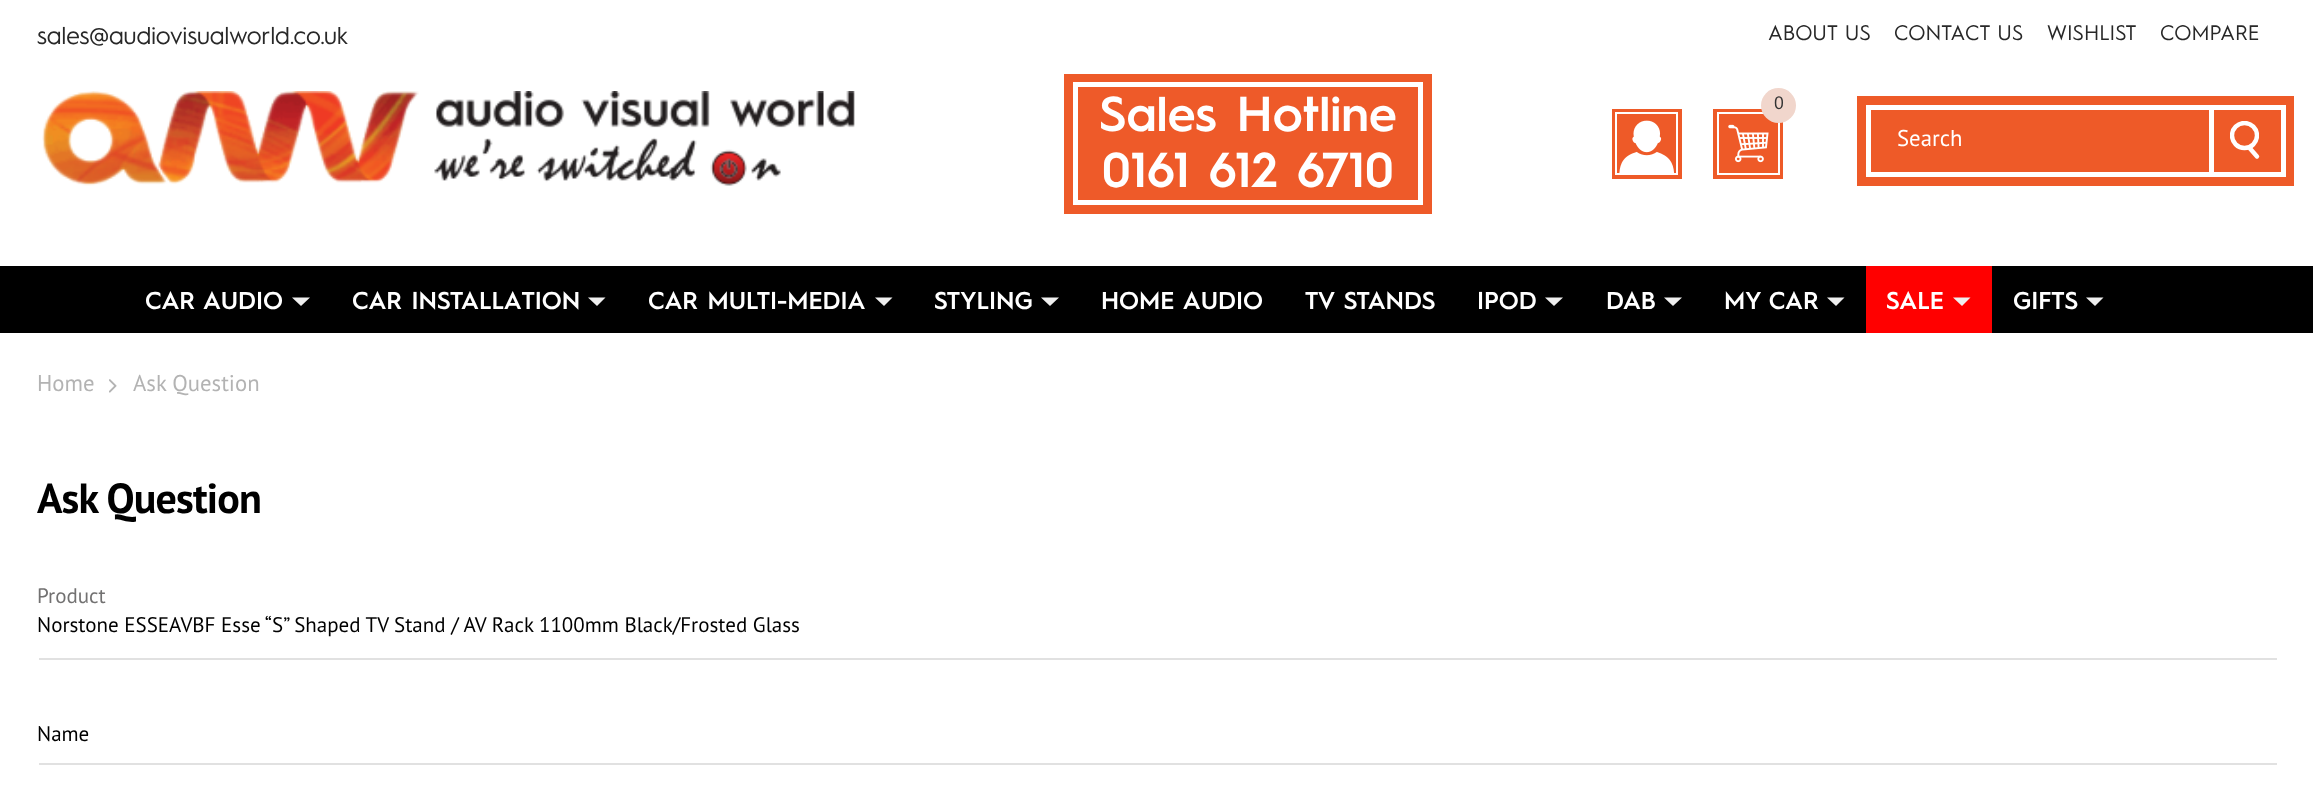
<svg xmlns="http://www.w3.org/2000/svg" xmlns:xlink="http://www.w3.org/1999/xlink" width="2313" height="795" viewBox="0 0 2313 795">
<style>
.cls-1{font:24.5px 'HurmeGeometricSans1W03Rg';fill:#282828}
.cls-2{font:21px 'HurmeGeometricSans1W03Rg';fill:#282828}
.cls-3{font:600 49px 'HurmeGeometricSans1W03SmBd';fill:#ffffff}
.cls-4{font:18px PT Sans;fill:#333333}
.cls-5{font:22.75px PT Sans;fill:#ffffff}
.cls-6{font:600 24.5px 'HurmeGeometricSans1W03SmBd';fill:#ffffff}
.cls-7{font:22.75px PT Sans;fill:#b3b3b3}
.cls-8{font:bold 42px PT Sans;letter-spacing:-0.8px;fill:#000000}
.cls-9{font:21px PT Sans;fill:#727171}
.cls-10{font:21px PT Sans;fill:#000000}
</style>
<defs>
<clipPath id="clip1"><rect x="2230" y="121" width="29" height="38"/></clipPath>
</defs>
<rect width="100%" height="100%" fill="#ffffff"/>
<rect fill="#ee5a29" x="1064" y="74" width="368" height="140"/>
<rect fill="none" stroke="#ffffff" stroke-width="5" x="1075.5" y="84.5" width="345" height="118"/>
<image xlink:href="image0.png" x="42" y="91" width="813" height="95"/>
<image xlink:href="image1.png" x="1713" y="109" width="70" height="70"/>
<circle fill="#f1d6cc" cx="1778.5" cy="105.5" r="17.5"/>
<image xlink:href="image2.png" x="1612" y="109" width="70" height="70"/>
<rect fill="#ee5a28" x="1857" y="96" width="437" height="90"/>
<rect fill="none" stroke="#ffffff" stroke-width="5" x="1868.5" y="107.5" width="415" height="67"/>
<g clip-path="url(#clip1)">
<circle fill="none" stroke="#ffffff" stroke-width="4.4" cx="2244.5" cy="135.5" r="12.5"/>
</g>
<path fill="none" stroke="#ffffff" stroke-width="4.4" stroke-linecap="round" stroke-linejoin="round" d="M2250 148.5L2257 156.5"/>
<rect fill="#ffffff" x="2209" y="105" width="5" height="72"/>
<rect fill="#000000" x="0" y="266" width="2313" height="67"/>
<path fill="#efefef" d="M292 297.5H310L301 306Z"/>
<path fill="#efefef" d="M588 297.5H605.5L597 306Z"/>
<path fill="#efefef" d="M875 297.5H892.5L884 306Z"/>
<path fill="#efefef" d="M1041 297.5H1059L1050 306Z"/>
<path fill="#efefef" d="M1545 297.5H1563L1554 306Z"/>
<path fill="#efefef" d="M1664 297.5H1682L1673 306Z"/>
<path fill="#efefef" d="M1827 297.5H1844.5L1836 306Z"/>
<rect fill="#ff0000" x="1866" y="266" width="126" height="67"/>
<path fill="#efefef" d="M1953 297.5H1970.5L1962 306Z"/>
<path fill="#efefef" d="M2086 297.5H2103.5L2095 306Z"/>
<image xlink:href="image3.png" x="109" y="379" width="8" height="14"/>
<rect fill="#e1e1e1" x="39" y="658" width="2238" height="2"/>
<rect fill="#e1e1e1" x="39" y="763" width="2238" height="2"/>
<text class="cls-1" x="37" y="44">sales@audiovisualworld.co.uk</text>
<text class="cls-2" x="1768" y="40">ABOUT US</text>
<text class="cls-2" x="1894" y="40">CONTACT US</text>
<text class="cls-2" x="2047" y="40">WISHLIST</text>
<text class="cls-2" x="2160" y="40">COMPARE</text>
<text class="cls-3" x="1099" y="131">Sales Hotline</text>
<text class="cls-3" x="1102" y="187">0161 612 6710</text>
<text class="cls-4" x="1774" y="109">0</text>
<text class="cls-5" x="1897" y="146">Search</text>
<text class="cls-6" x="145" y="309">CAR AUDIO</text>
<text class="cls-6" x="352" y="309">CAR INSTALLATION</text>
<text class="cls-6" x="648" y="309">CAR MULTI-MEDIA</text>
<text class="cls-6" x="934" y="309">STYLING</text>
<text class="cls-6" x="1101" y="309">HOME AUDIO</text>
<text class="cls-6" x="1305" y="309">TV STANDS</text>
<text class="cls-6" x="1477" y="309">IPOD</text>
<text class="cls-6" x="1606" y="309">DAB</text>
<text class="cls-6" x="1724" y="309">MY CAR</text>
<text class="cls-6" x="1886" y="309">SALE</text>
<text class="cls-6" x="2013" y="309">GIFTS</text>
<text class="cls-7" x="37" y="391">Home</text>
<text class="cls-7" x="133" y="391">Ask Question</text>
<text class="cls-8" x="37" y="513">Ask Question</text>
<text class="cls-9" x="37" y="603">Product</text>
<text class="cls-10" x="37" y="632">Norstone ESSEAVBF Esse “S” Shaped TV Stand / AV Rack 1100mm Black/Frosted Glass</text>
<text class="cls-10" x="37" y="741">Name</text>
</svg>
